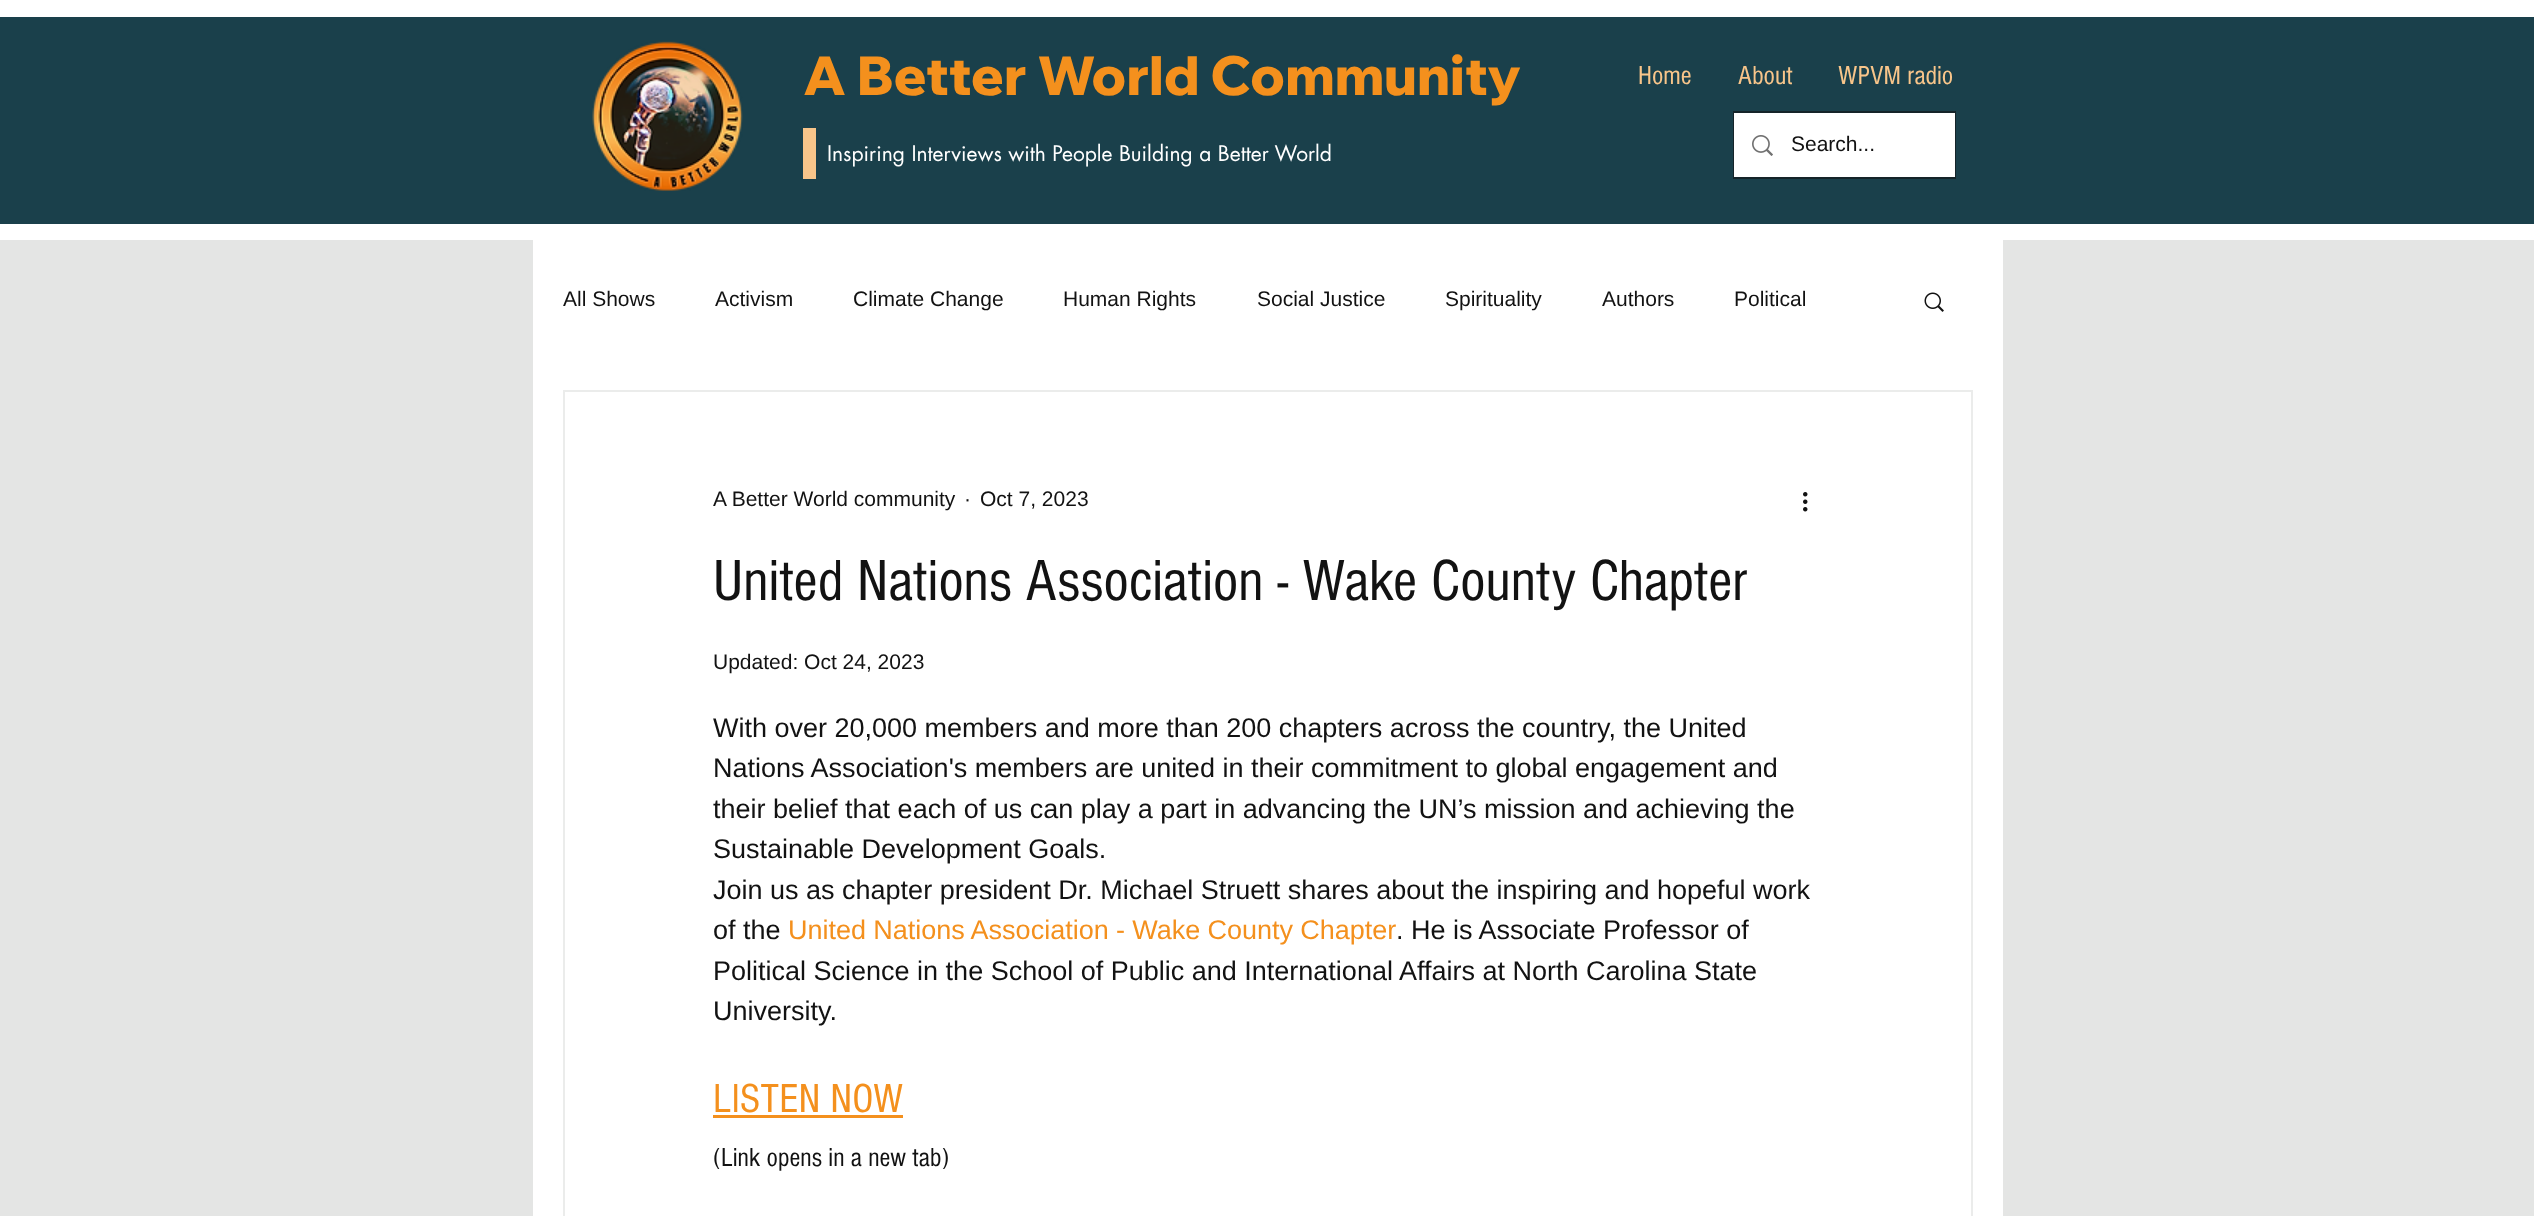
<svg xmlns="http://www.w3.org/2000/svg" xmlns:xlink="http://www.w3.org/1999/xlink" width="2534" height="1216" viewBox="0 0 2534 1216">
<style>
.cls-1{font:800 54px Wix Madefor Display;fill:#f4901d}
.cls-2{font:27px 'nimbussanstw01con';fill:#f8c58a}
.cls-3{font:21px futura;fill:#ffffff}
.cls-4{font:21px Liberation Sans;fill:#121212}
.cls-5{font:60px 'nimbussanstw01con';fill:#121212}
.cls-6{font:27px Liberation Sans;fill:#121212}
.cls-7{font:27px Liberation Sans;fill:#f4901d}
.cls-8{font:42px 'nimbussanstw01con';fill:#f4901d}
.cls-9{font:27px 'nimbussanstw01con';fill:#121212}
</style>
<rect width="100%" height="100%" fill="#e4e5e4"/>
<rect fill="#ffffff" x="0" y="0" width="2534" height="17"/>
<rect fill="#ffffff" x="0" y="224" width="2534" height="16"/>
<rect fill="#1a404b" x="0" y="17" width="2534" height="207"/>
<image xlink:href="image0.png" x="592" y="41" width="151" height="150"/>
<rect fill="#f8c58a" x="803" y="128" width="13" height="51"/>
<rect fill="none" stroke="#152429" stroke-width="2" x="1734" y="112" width="221" height="66"/>
<rect fill="#ffffff" x="1734" y="113" width="221" height="64"/>
<image xlink:href="image1.png" x="1752" y="135" width="21" height="21"/>
<rect fill="#ffffff" x="533" y="240" width="1470" height="976"/>
<image xlink:href="image2.png" x="1924" y="292" width="20" height="20"/>
<rect fill="none" stroke="#ebeceb" stroke-width="2" x="564" y="391" width="1408" height="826"/>
<image xlink:href="image3.png" x="1803" y="492" width="5" height="20"/>
<rect fill="#f4901d" x="713" y="1115" width="190" height="3"/>
<text class="cls-1" x="803" y="95">A Better World Community</text>
<text class="cls-2" x="1638" y="84">Home</text>
<text class="cls-2" x="1738" y="84">About</text>
<text class="cls-2" x="1838" y="84">WPVM radio</text>
<text class="cls-3" x="827" y="161">Inspiring Interviews with People Building a Better World</text>
<text class="cls-4" x="1791" y="151">Search...</text>
<text class="cls-4" x="563" y="306">All Shows</text>
<text class="cls-4" x="715" y="306">Activism</text>
<text class="cls-4" x="853" y="306">Climate Change</text>
<text class="cls-4" x="1063" y="306">Human Rights</text>
<text class="cls-4" x="1257" y="306">Social Justice</text>
<text class="cls-4" x="1445" y="306">Spirituality</text>
<text class="cls-4" x="1602" y="306">Authors</text>
<text class="cls-4" x="1734" y="306">Political</text>
<text class="cls-4" x="713" y="506">A Better World community</text>
<text class="cls-4" x="964" y="506">·</text>
<text class="cls-4" x="980" y="506">Oct 7, 2023</text>
<text class="cls-5" x="713" y="600">United Nations Association - Wake County Chapter</text>
<text class="cls-4" x="713" y="669">Updated: Oct 24, 2023</text>
<text class="cls-6"><tspan x="713" y="737">With over 20,000 members and more than 200 chapters across the country, the United</tspan><tspan x="713" y="777">Nations Association's members are united in their commitment to global engagement and</tspan><tspan x="713" y="818">their belief that each of us can play a part in advancing the UN’s mission and achieving the</tspan><tspan x="713" y="858">Sustainable Development Goals.</tspan><tspan x="713" y="899">Join us as chapter president Dr. Michael Struett shares about the inspiring and hopeful work</tspan><tspan x="713" y="939">of the</tspan></text>
<text class="cls-7" x="788" y="939" word-spacing="-0.25">United Nations Association - Wake County Chapter</text>
<text class="cls-6" x="1396" y="939">. He is Associate Professor of</text>
<text class="cls-6"><tspan x="713" y="980">Political Science in the School of Public and International Affairs at North Carolina State</tspan><tspan x="713" y="1020">University.</tspan></text>
<text class="cls-8" x="713" y="1112">LISTEN NOW</text>
<text class="cls-9" x="713" y="1166">(Link opens in a new tab)</text>
</svg>
